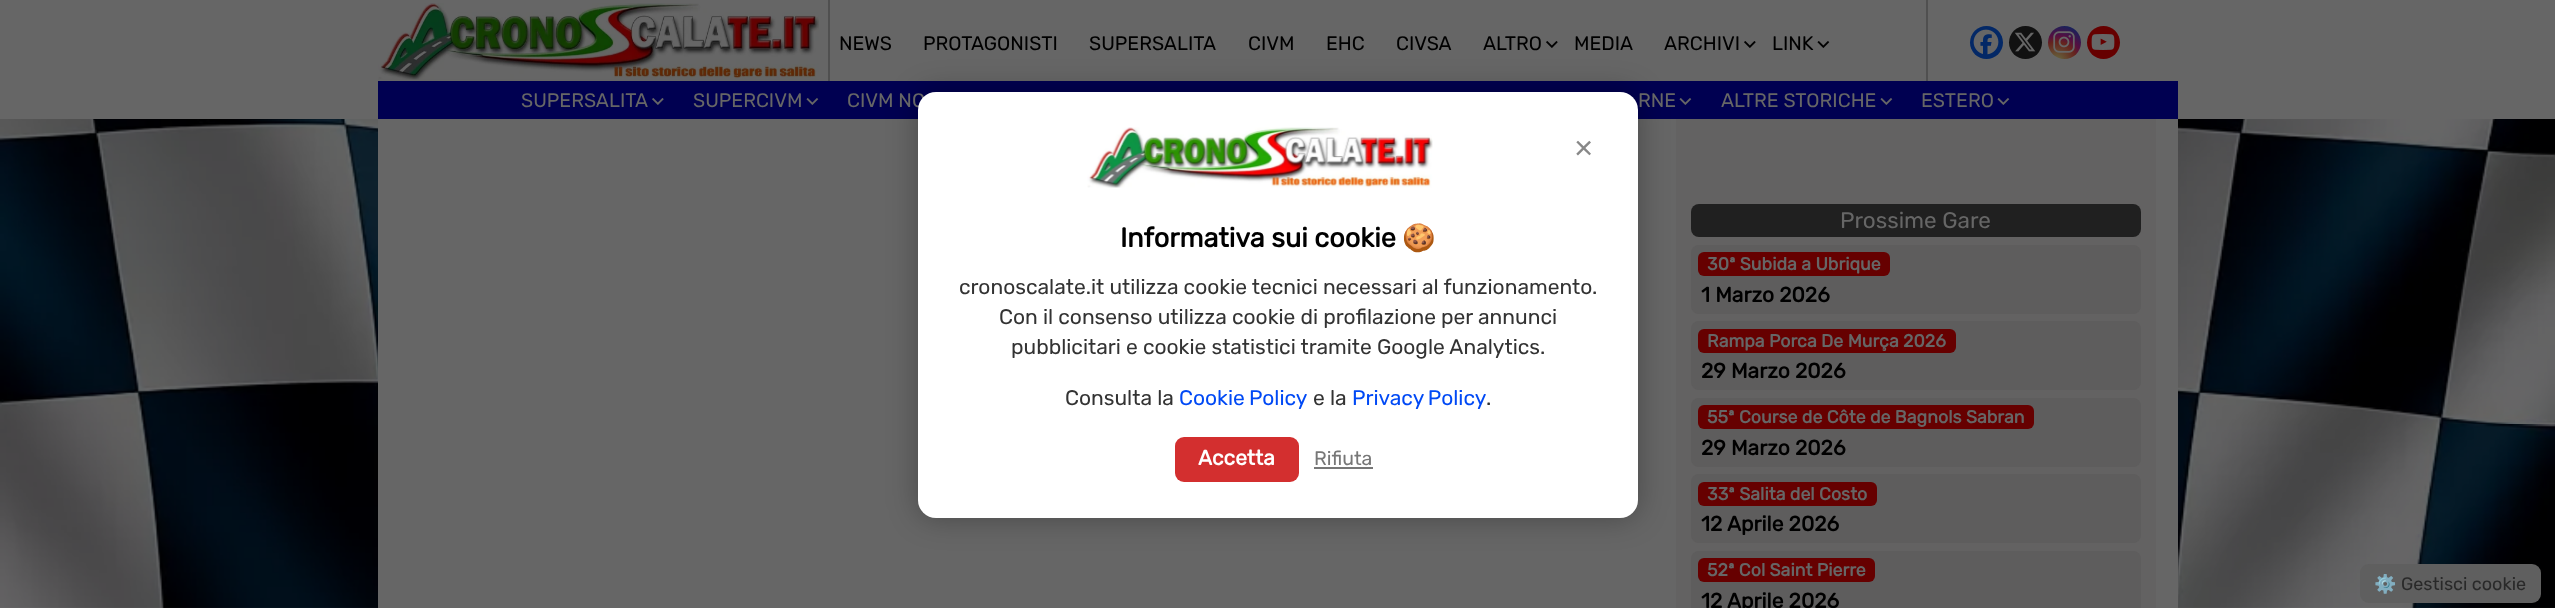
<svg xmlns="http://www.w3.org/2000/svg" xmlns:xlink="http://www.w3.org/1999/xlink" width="2555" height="608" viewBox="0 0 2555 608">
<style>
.cls-1{font:19.5px Rubik;fill:#000000}
.cls-2{font:19.5px Rubik;fill:#666666}
.cls-3{font:33px Liberation Sans;fill:#888888}
.cls-4{font:bold 27px Rubik;fill:#000000}
.cls-5{font:bold 27px Noto Color Emoji;fill:#000000}
.cls-6{font:21px Rubik;fill:#333333}
.cls-7{font:21px Rubik;fill:#0049f5}
.cls-8{font:bold 21px Rubik;fill:#ffffff}
.cls-9{font:19.5px Rubik;fill:#777777}
.cls-10{font:22.5px Rubik;fill:#666666}
.cls-11{font:bold 17.8px Rubik;fill:#666666}
.cls-12{font:bold 21px Rubik;fill:#000000}
.cls-13{font:18px Noto Color Emoji;fill:#292929}
.cls-14{font:18px Rubik;fill:#292929}
</style>
<defs>
<radialGradient id="g1" gradientUnits="userSpaceOnUse" cx="2057" cy="61" r="42"><stop offset="0" stop-color="#65623c"/><stop offset="0.05" stop-color="#65623c"/><stop offset="0.45" stop-color="#65241d"/><stop offset="0.6" stop-color="#560e40"/><stop offset="0.9" stop-color="#10245e"/></radialGradient>
</defs>
<rect width="100%" height="100%" fill="#ffffff"/>
<image xlink:href="image0.png" x="0" y="119" width="2555" height="489"/>
<rect fill="#666666" x="0" y="0" width="2555" height="119"/>
<image xlink:href="image1.png" x="378" y="3" width="441" height="77"/>
<rect fill="#505050" x="828" y="0" width="2" height="81"/>
<image xlink:href="image2.png" x="1546" y="41" width="12" height="7"/>
<image xlink:href="image2.png" x="1744" y="41" width="12" height="7"/>
<image xlink:href="image3.png" x="1817" y="41" width="13" height="7"/>
<rect fill="#505050" x="1926" y="0" width="2" height="81"/>
<circle fill="#032866" cx="1986.5" cy="42.5" r="16.5"/>
<image xlink:href="image4.png" x="1973" y="29" width="26" height="26"/>
<circle fill="#111111" cx="2025.5" cy="42.5" r="16.5"/>
<image xlink:href="image5.png" x="2014" y="32" width="22" height="20"/>
<circle fill="url(#g1)" cx="2064.5" cy="42.5" r="16.5"/>
<image xlink:href="image6.png" x="2053" y="31" width="22" height="22"/>
<circle fill="#660000" cx="2103.5" cy="42.5" r="16.5"/>
<image xlink:href="image7.png" x="2091" y="34" width="24" height="16"/>
<rect fill="#000051" x="378" y="81" width="1800" height="38"/>
<image xlink:href="image8.png" x="652" y="98" width="12" height="7"/>
<image xlink:href="image9.png" x="806" y="98" width="13" height="7"/>
<image xlink:href="image9.png" x="1679" y="98" width="13" height="7"/>
<image xlink:href="image9.png" x="1880" y="98" width="13" height="7"/>
<image xlink:href="image9.png" x="1997" y="98" width="13" height="7"/>
<rect fill="#666666" x="378" y="119" width="1800" height="489"/>
<rect fill="#636262" x="1676" y="119" width="480" height="489"/>
<rect fill="#000000" fill-opacity="0.3" filter="blur(15px)" x="918" y="92" width="720" height="426" rx="18"/>
<rect fill="#202020" x="1691" y="204" width="450" height="33" rx="8"/>
<rect fill="#5e5d5d" x="1691" y="245" width="450" height="69" rx="8"/>
<rect fill="#660000" x="1698" y="252" width="192" height="24" rx="6"/>
<rect fill="#5e5d5d" x="1691" y="321" width="450" height="69" rx="8"/>
<rect fill="#660000" x="1698" y="329" width="258" height="24" rx="6"/>
<rect fill="#5e5d5d" x="1691" y="398" width="450" height="69" rx="8"/>
<rect fill="#660000" x="1698" y="405" width="336" height="24" rx="6"/>
<rect fill="#5e5d5d" x="1691" y="474" width="450" height="69" rx="8"/>
<rect fill="#660000" x="1698" y="482" width="179" height="24" rx="6"/>
<rect fill="#5e5d5d" x="1691" y="551" width="450" height="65" rx="8"/>
<rect fill="#660000" x="1698" y="558" width="177" height="24" rx="6"/>
<rect fill="#5f5f5f" x="2360" y="564" width="181" height="39" rx="9"/>
<text class="cls-1" x="839" y="50">NEWS</text>
<text class="cls-1" x="923" y="50">PROTAGONISTI</text>
<text class="cls-1" x="1089" y="50">SUPERSALITA</text>
<text class="cls-1" x="1248" y="50">CIVM</text>
<text class="cls-1" x="1326" y="50">EHC</text>
<text class="cls-1" x="1396" y="50">CIVSA</text>
<text class="cls-1" x="1483" y="50">ALTRO</text>
<text class="cls-1" x="1574" y="50">MEDIA</text>
<text class="cls-1" x="1664" y="50">ARCHIVI</text>
<text class="cls-1" x="1772" y="50">LINK</text>
<text class="cls-2" x="521" y="107">SUPERSALITA</text>
<text class="cls-2" x="693" y="107">SUPERCIVM</text>
<text class="cls-2" x="847" y="107">CIVM NO</text>
<text class="cls-2" x="1638" y="107">RNE</text>
<text class="cls-2" x="1721" y="107">ALTRE STORICHE</text>
<text class="cls-2" x="1921" y="107">ESTERO</text>
<rect fill="#ffffff" x="918" y="92" width="720" height="426" rx="18"/>
<image xlink:href="image10.png" x="1087" y="127" width="346" height="61"/>
<text class="cls-3" x="1574" y="159">×</text>
<text class="cls-4" x="1120" y="247">Informativa sui cookie</text>
<text class="cls-5" x="1402" y="247">🍪</text>
<text class="cls-6" x="959" y="294">cronoscalate.it utilizza cookie tecnici necessari al funzionamento.</text>
<text class="cls-6" x="999" y="324">Con il consenso utilizza cookie di profilazione per annunci</text>
<text class="cls-6" x="1011" y="354">pubblicitari e cookie statistici tramite Google Analytics.</text>
<text class="cls-6" x="1065" y="405">Consulta la</text>
<text class="cls-7" x="1179" y="405" word-spacing="-1">Cookie Policy</text>
<text class="cls-6" x="1313" y="405">e la</text>
<text class="cls-7" x="1352" y="405" word-spacing="-1">Privacy Policy</text>
<text class="cls-6" x="1486" y="405">.</text>
<rect fill="#d32f2f" x="1175" y="437" width="124" height="45" rx="9"/>
<text class="cls-8" x="1198" y="465">Accetta</text>
<text class="cls-9" x="1314" y="465">Rifiuta</text>
<rect fill="#777777" x="1314" y="467" width="59" height="2"/>
<text class="cls-10" x="1840" y="228">Prossime Gare</text>
<text class="cls-11" x="1707" y="270">30ª Subida a Ubrique</text>
<text class="cls-12" x="1701" y="302">1 Marzo 2026</text>
<text class="cls-11" x="1707" y="347">Rampa Porca De Murça 2026</text>
<text class="cls-12" x="1701" y="378">29 Marzo 2026</text>
<text class="cls-11" x="1707" y="423">55ª Course de Côte de Bagnols Sabran</text>
<text class="cls-12" x="1701" y="455">29 Marzo 2026</text>
<text class="cls-11" x="1707" y="500">33ª Salita del Costo</text>
<text class="cls-12" x="1701" y="531">12 Aprile 2026</text>
<text class="cls-11" x="1707" y="576">52ª Col Saint Pierre</text>
<text class="cls-12" x="1701" y="608">12 Aprile 2026</text>
<text class="cls-13" x="2374" y="590">⚙️</text>
<text class="cls-14" x="2401" y="590">Gestisci cookie</text>
</svg>
